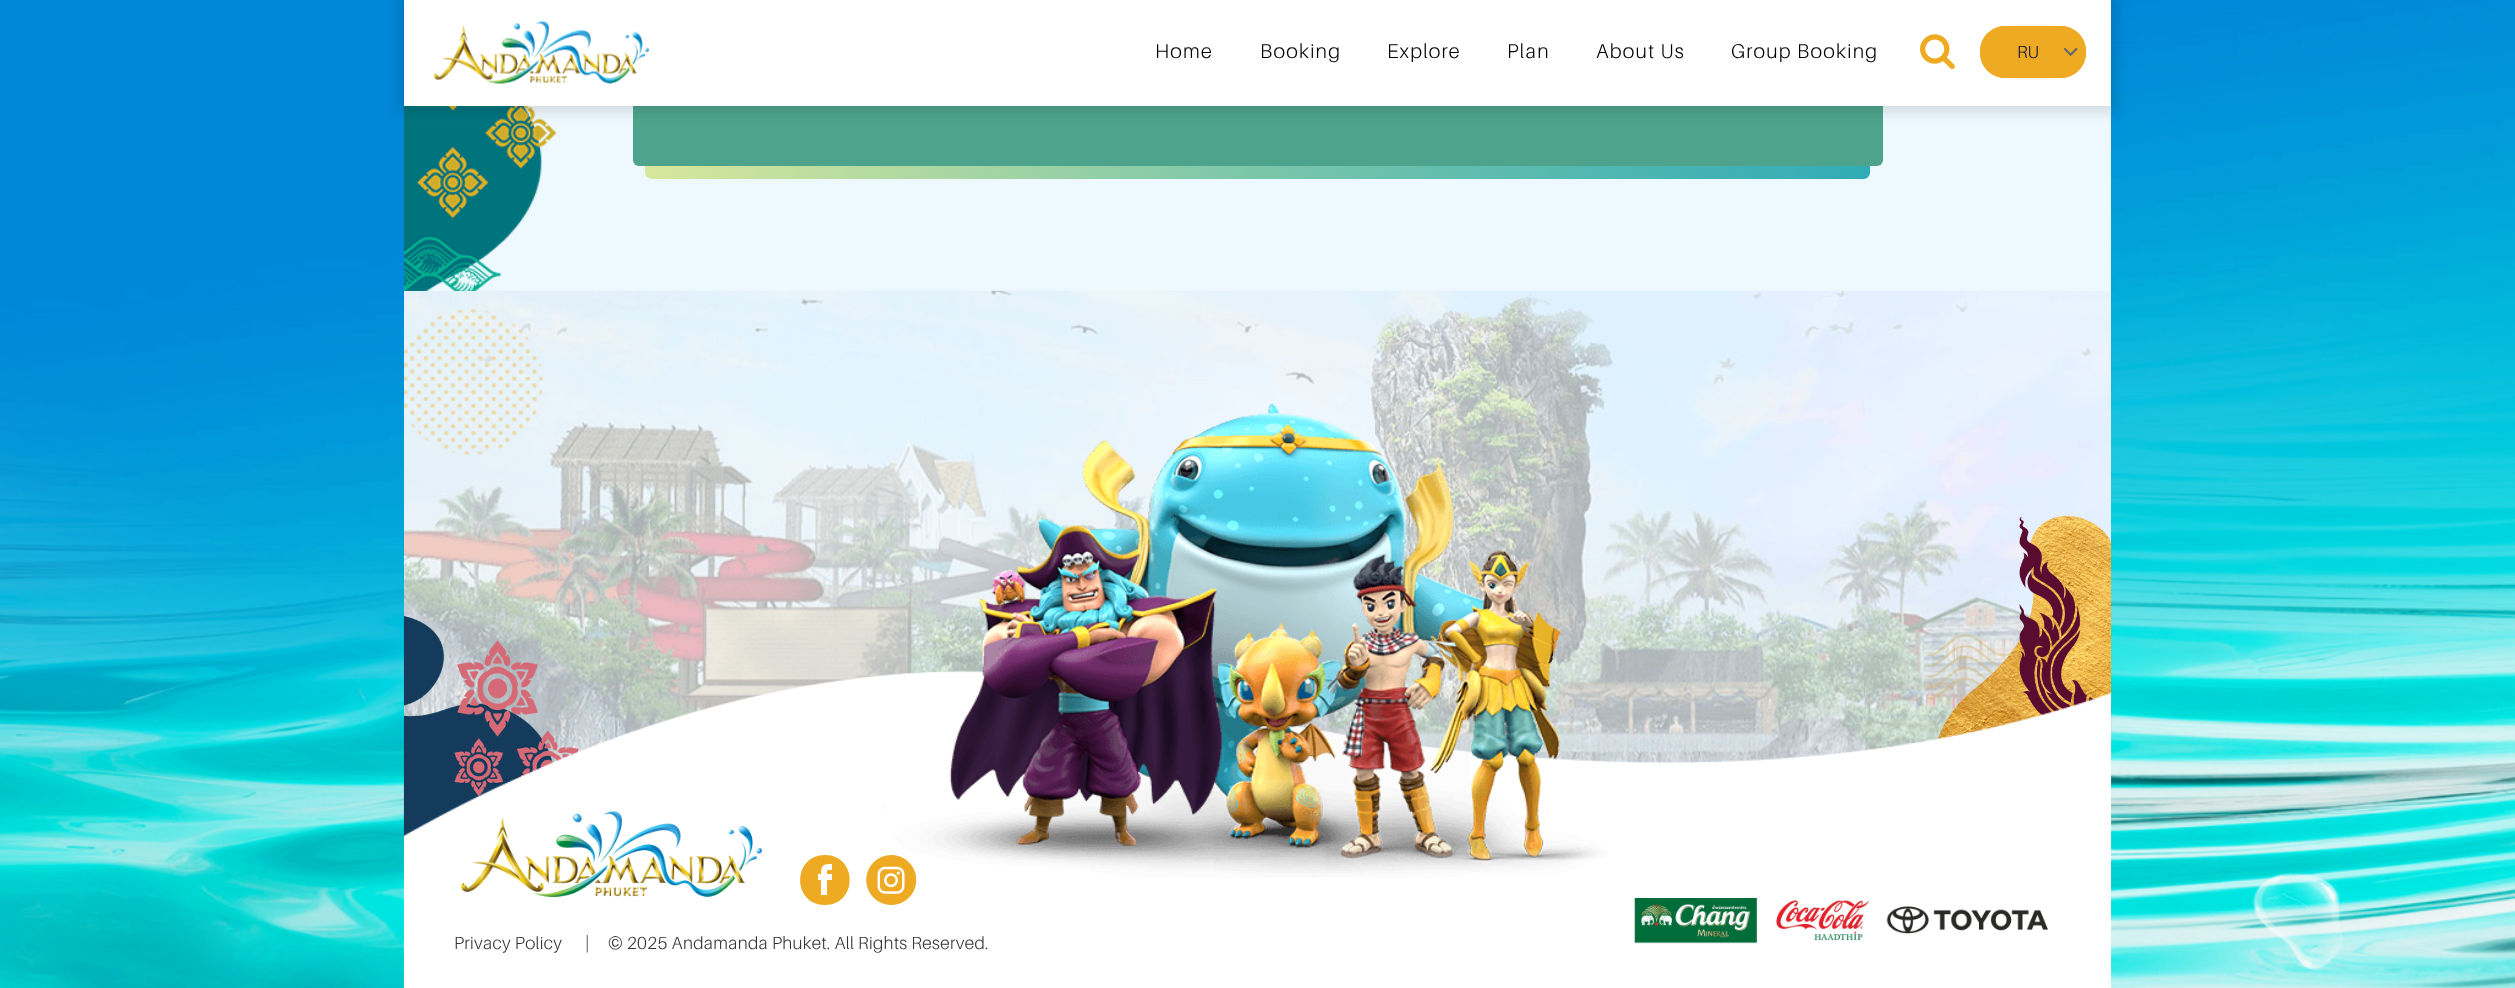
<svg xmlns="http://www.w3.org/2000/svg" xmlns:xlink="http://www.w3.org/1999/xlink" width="2515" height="988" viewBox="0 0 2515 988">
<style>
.cls-1{font:300 20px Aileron;letter-spacing:1.25px;fill:#000000}
.cls-2{font:300 17.5px Aileron;fill:#00113c}
.cls-3{font:300 17.5px Aileron;letter-spacing:0.35px;fill:#333333}
</style>
<defs>
<linearGradient id="g1" gradientUnits="userSpaceOnUse" x1="645" y1="173" x2="1870" y2="172"><stop offset="0" stop-color="#d7e79b"/><stop offset="0.5" stop-color="#7ac6aa"/><stop offset="1" stop-color="#30abb6"/></linearGradient>
</defs>
<rect width="100%" height="100%" fill="#ffffff"/>
<image xlink:href="image0.png" x="0" y="0" width="2515" height="988"/>
<rect fill="#eef8ff" x="424" y="106" width="1687" height="185"/>
<image xlink:href="image1.png" x="403" y="5" width="154" height="303"/>
<rect fill="#4da38b" x="633" y="-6" width="1250" height="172" rx="6"/>
<path fill="url(#g1)" d="M645 166H1870V172.5C1870 176 1867 179 1863.5 179H651.5C648 179 645 176 645 172.5Z"/>
<rect fill="#eef8ff" x="404" y="291" width="1707" height="473"/>
<image xlink:href="image2.png" x="404" y="290" width="1707" height="474"/>
<image xlink:href="image3.png" x="403" y="309" width="140" height="146"/>
<image xlink:href="image4.png" x="1927" y="634" width="185" height="66"/>
<rect fill="#000000" fill-opacity="0.1" filter="blur(6px)" x="398" y="-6" width="1720" height="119"/>
<rect fill="#ffffff" x="404" y="0" width="1707" height="106"/>
<image xlink:href="image5.png" x="433" y="20" width="216" height="64"/>
<image xlink:href="image6.png" x="1920" y="34" width="35" height="36"/>
<rect fill="#eeaa23" x="1980" y="26" width="106" height="52" rx="25"/>
<image xlink:href="image7.png" x="2064" y="47" width="14" height="9"/>
<rect fill="none" stroke="#eeaa23" x="1980.5" y="26.5" width="105" height="51" rx="24.5"/>
<image xlink:href="image8.png" x="403" y="403" width="1709" height="585"/>
<image xlink:href="image9.png" x="460" y="810" width="302" height="88"/>
<path fill="#eeaa23" d="M825 855C792 855 792 905 825 905C858 905 858 855 825 855ZM832 880H827V895H821V880H818V874H821C821 865 823 864 832 864V870C827 870 827 869 827 874H832Z"/>
<image xlink:href="image10.png" x="866" y="855" width="50" height="50"/>
<image xlink:href="image11.png" x="1634" y="897" width="414" height="47"/>
<text class="cls-1" x="1155" y="58">Home</text>
<text class="cls-1" x="1260" y="58">Booking</text>
<text class="cls-1" x="1387" y="58">Explore</text>
<text class="cls-1" x="1507" y="58">Plan</text>
<text class="cls-1" x="1596" y="58">About Us</text>
<text class="cls-1" x="1731" y="58">Group Booking</text>
<text class="cls-2" x="2017" y="58">RU</text>
<text class="cls-3" x="454" y="949">Privacy Policy</text>
<text class="cls-3" x="585" y="949">|</text>
<text class="cls-3" x="608" y="949">© 2025 Andamanda Phuket. All Rights Reserved.</text>
</svg>
